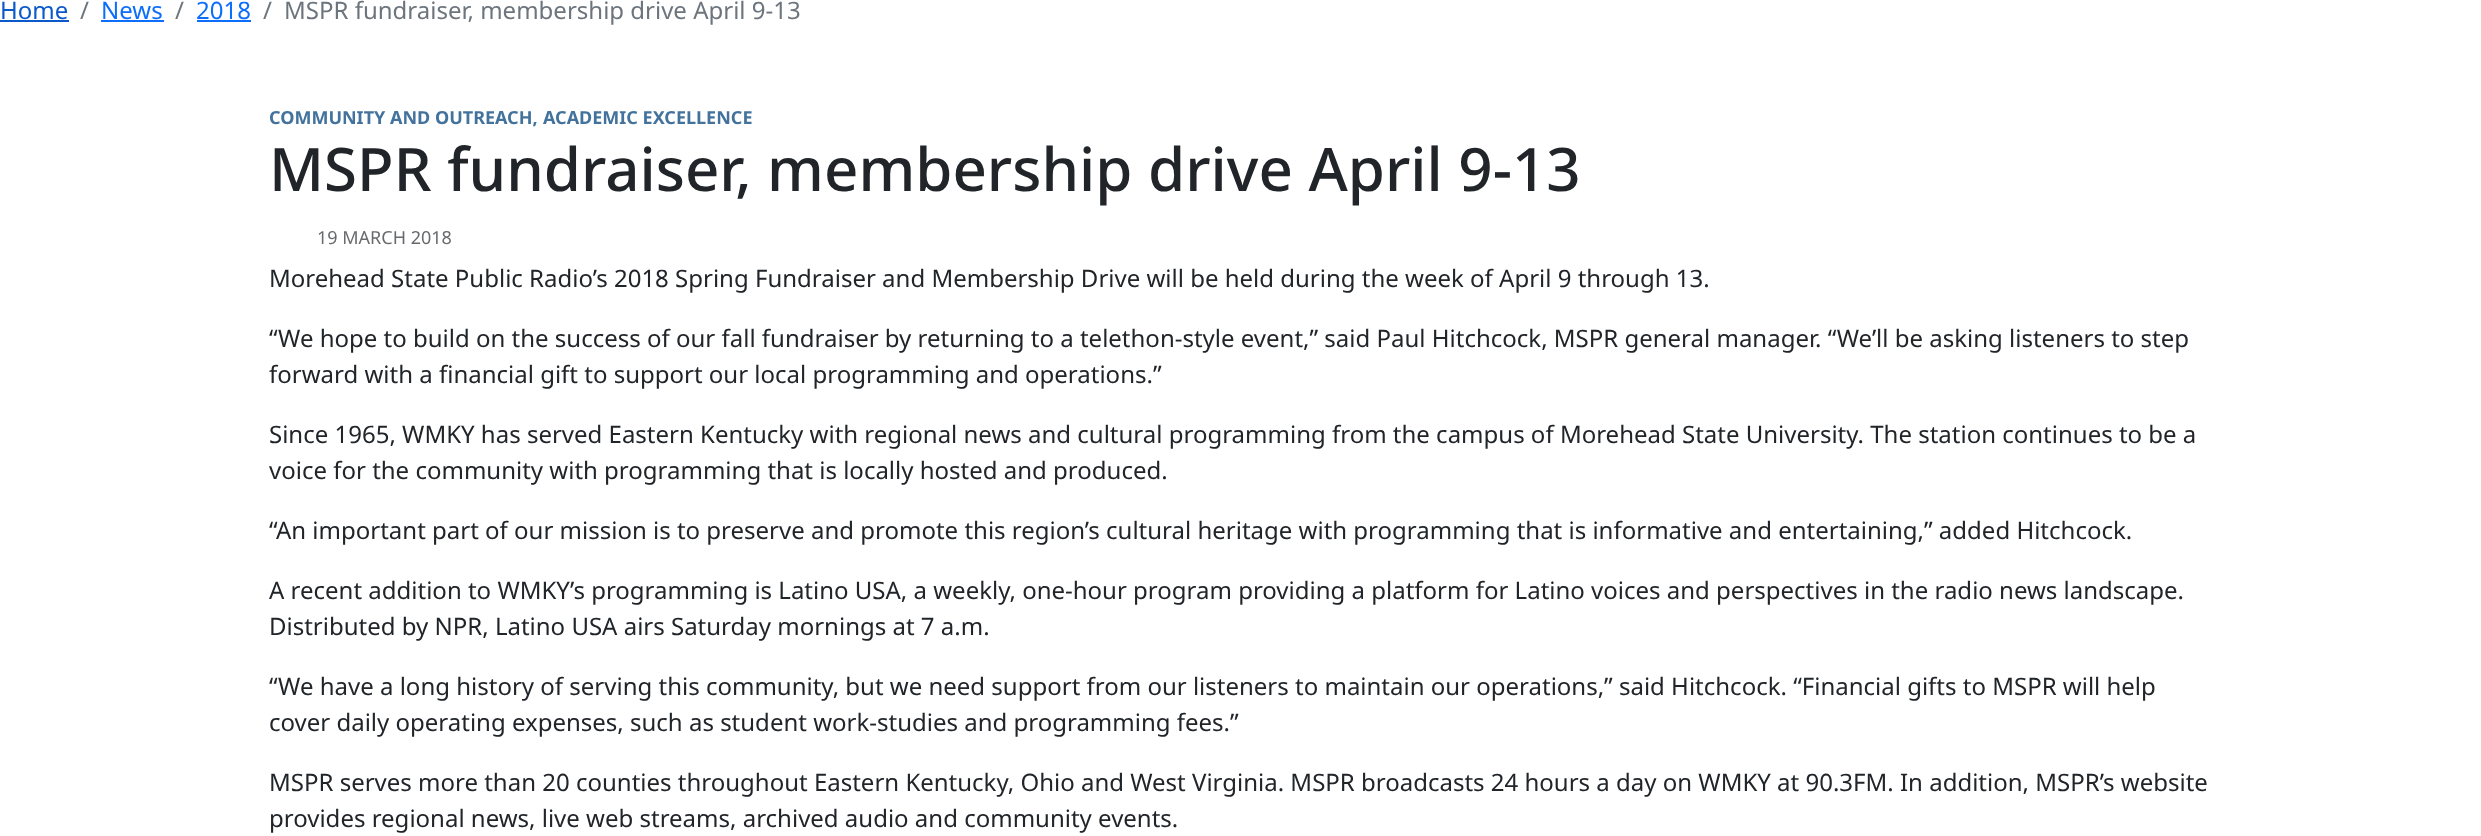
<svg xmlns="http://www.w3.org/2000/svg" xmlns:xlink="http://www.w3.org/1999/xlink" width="2481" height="836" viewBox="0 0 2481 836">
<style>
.cls-1{font:24px Noto Sans;fill:#0a58ca}
.cls-2{font:24px Noto Sans;fill:#6c757d}
.cls-3{font:24px Noto Sans;fill:#0d6efd}
.cls-4{font:bold 18px Noto Sans;fill:#43739c}
.cls-5{font:500 60px Noto Sans;fill:#212529}
.cls-6{font:18px Noto Sans;fill:#686a6d}
.cls-7{font:24px Noto Sans;fill:#212529}
</style>
<rect width="100%" height="100%" fill="#ffffff"/>
<rect fill="#0a58ca" x="0" y="20" width="69" height="2"/>
<rect fill="#0d6efd" x="101" y="20" width="63" height="2"/>
<rect fill="#0d6efd" x="197" y="20" width="54" height="2"/>
<text class="cls-1" x="0" y="19">Home</text>
<text class="cls-2" x="80" y="19">/</text>
<text class="cls-3" x="101" y="19">News</text>
<text class="cls-2" x="175" y="19">/</text>
<text class="cls-3" x="196" y="19">2018</text>
<text class="cls-2" x="263" y="19">/</text>
<text class="cls-2" x="284" y="19">MSPR fundraiser, membership drive April 9-13</text>
<text class="cls-4" x="269" y="124">COMMUNITY AND OUTREACH,</text>
<text class="cls-4" x="543" y="124">ACADEMIC EXCELLENCE</text>
<text class="cls-5" x="269" y="191">MSPR fundraiser, membership drive April 9-13</text>
<text class="cls-6" x="317" y="244">19 MARCH 2018</text>
<text class="cls-7" x="269" y="287">Morehead State Public Radio’s 2018 Spring Fundraiser and Membership Drive will be held during the week of April 9 through 13.</text>
<text class="cls-7"><tspan x="269" y="347">“We hope to build on the success of our fall fundraiser by returning to a telethon-style event,” said Paul Hitchcock, MSPR general manager. “We’ll be asking listeners to step</tspan><tspan x="269" y="383">forward with a financial gift to support our local programming and operations.”</tspan></text>
<text class="cls-7"><tspan x="269" y="443">Since 1965, WMKY has served Eastern Kentucky with regional news and cultural programming from the campus of Morehead State University. The station continues to be a</tspan><tspan x="269" y="479">voice for the community with programming that is locally hosted and produced.</tspan></text>
<text class="cls-7" x="269" y="539">“An important part of our mission is to preserve and promote this region’s cultural heritage with programming that is informative and entertaining,” added Hitchcock.</text>
<text class="cls-7"><tspan x="269" y="599">A recent addition to WMKY’s programming is Latino USA, a weekly, one-hour program providing a platform for Latino voices and perspectives in the radio news landscape.</tspan><tspan x="269" y="635">Distributed by NPR, Latino USA airs Saturday mornings at 7 a.m.</tspan></text>
<text class="cls-7"><tspan x="269" y="695">“We have a long history of serving this community, but we need support from our listeners to maintain our operations,” said Hitchcock. “Financial gifts to MSPR will help</tspan><tspan x="269" y="731">cover daily operating expenses, such as student work-studies and programming fees.”</tspan></text>
<text class="cls-7"><tspan x="269" y="791">MSPR serves more than 20 counties throughout Eastern Kentucky, Ohio and West Virginia. MSPR broadcasts 24 hours a day on WMKY at 90.3FM. In addition, MSPR’s website</tspan><tspan x="269" y="827">provides regional news, live web streams, archived audio and community events.</tspan></text>
</svg>
